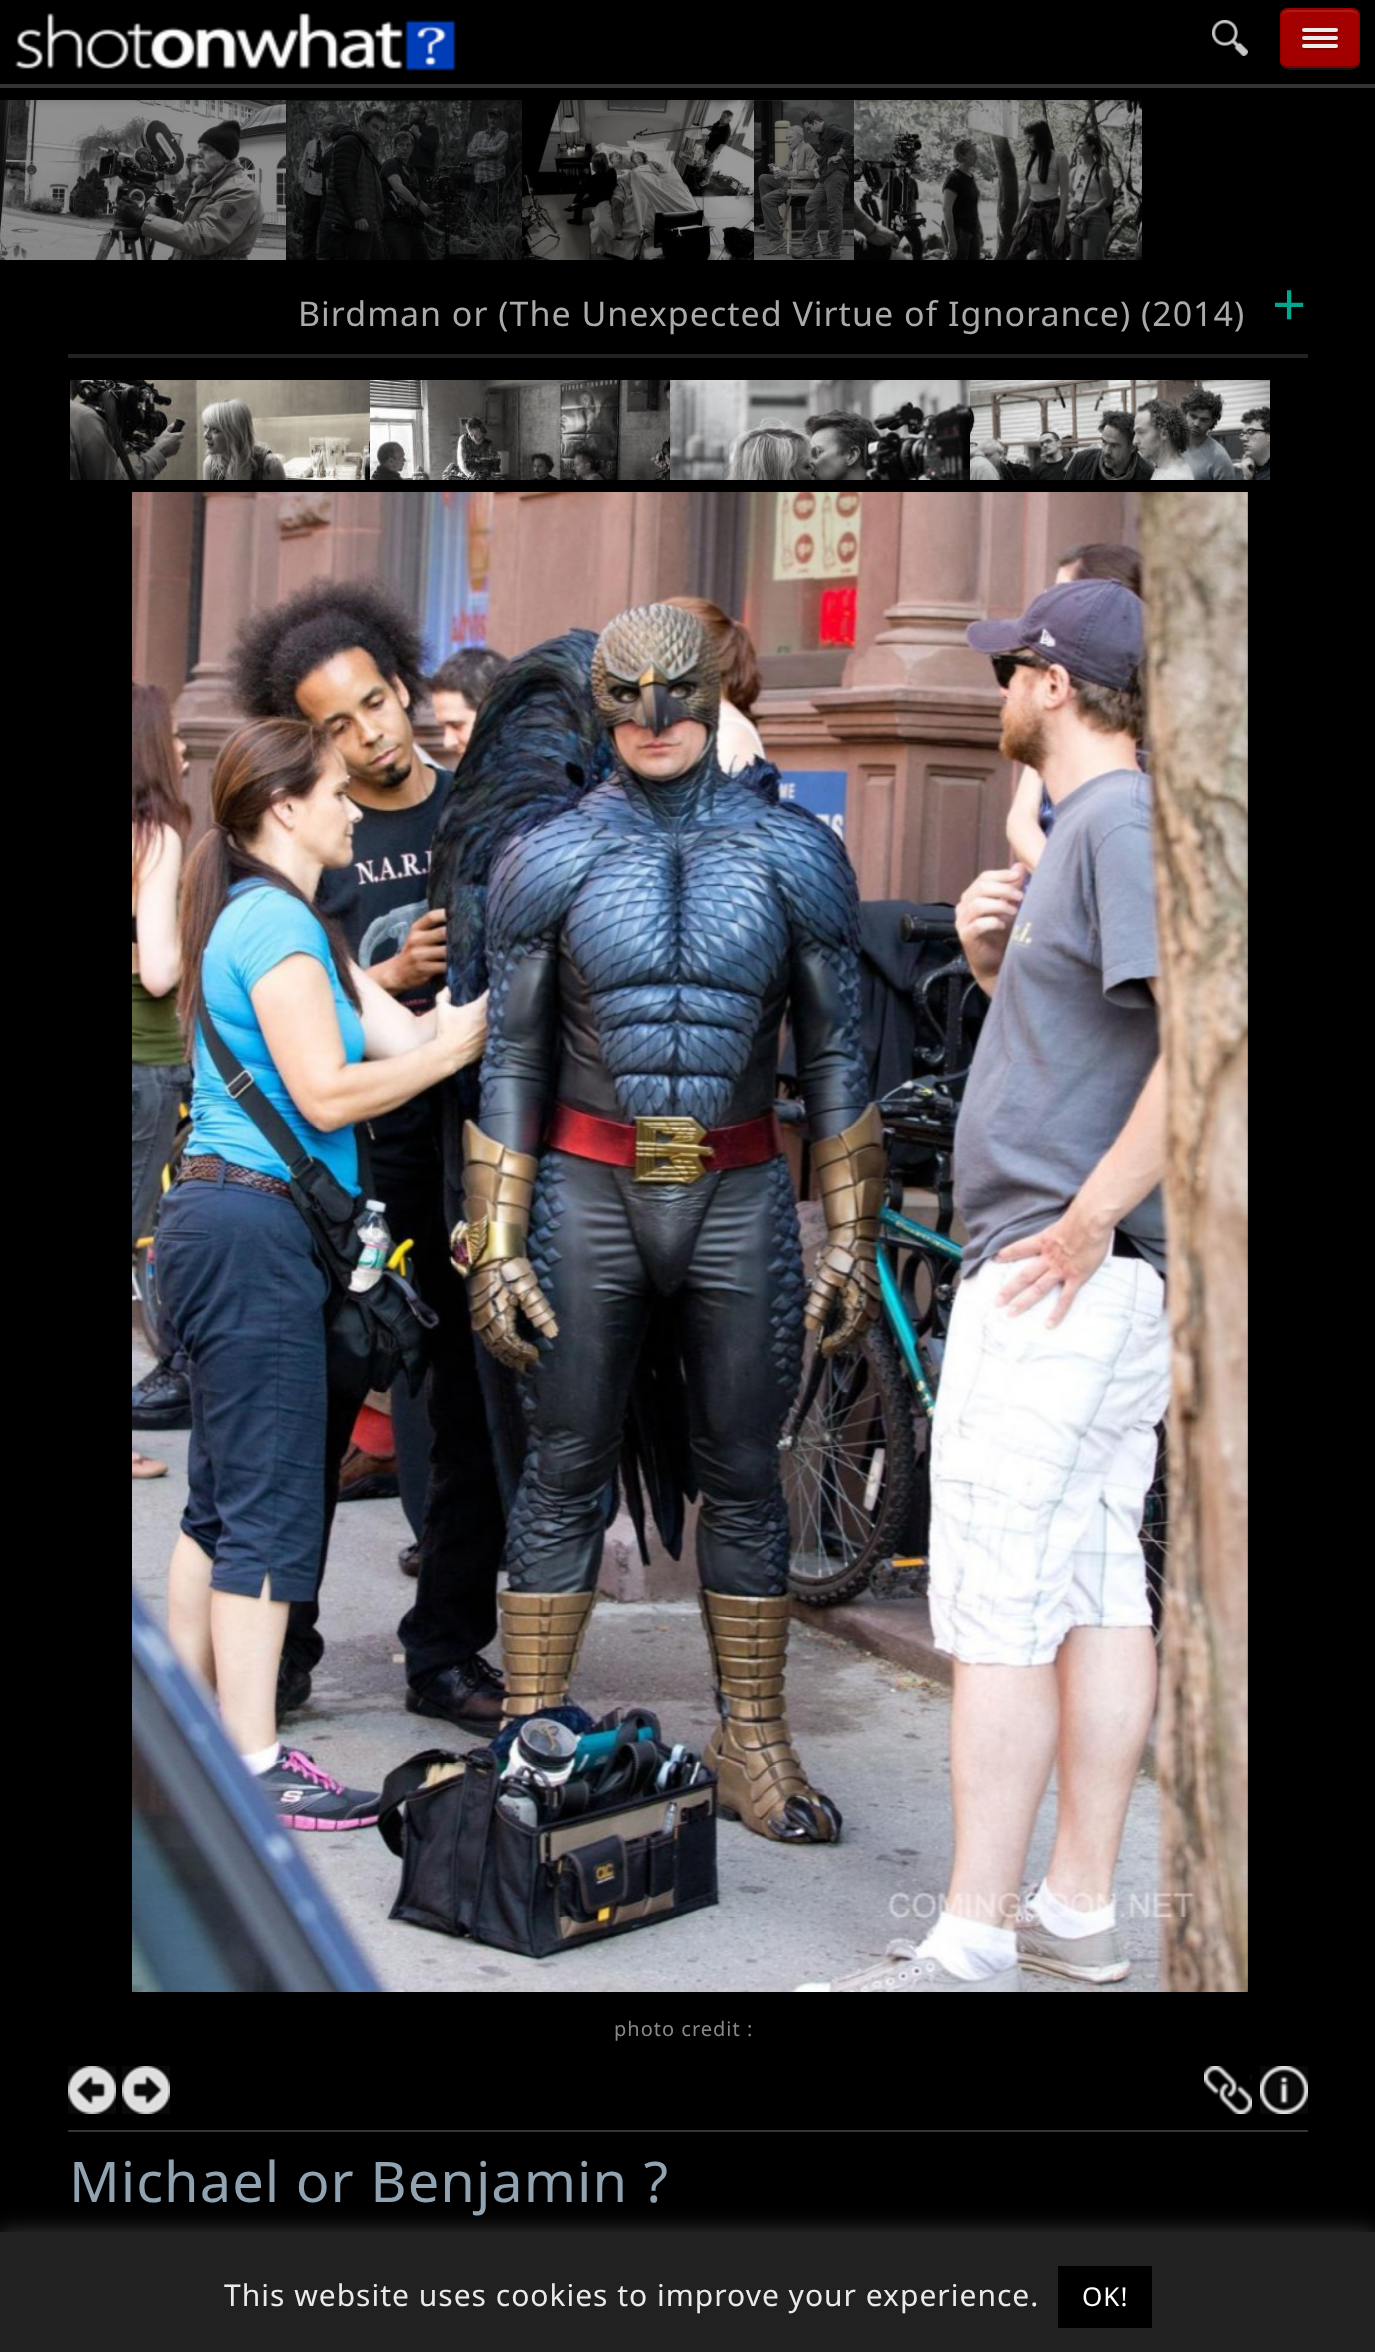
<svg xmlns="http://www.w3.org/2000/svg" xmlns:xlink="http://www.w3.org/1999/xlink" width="1375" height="2352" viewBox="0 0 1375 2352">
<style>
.cls-1{font:34px Noto Sans;letter-spacing:1px;fill:#aaaaaa}
.cls-2{font:60px Noto Sans;letter-spacing:1px;fill:#02a78e}
.cls-3{font:20px Noto Sans;letter-spacing:1px;fill:#888888}
.cls-4{font:56px Noto Sans;letter-spacing:1px;fill:#91a3b0}
.cls-5{font:30px Noto Sans;letter-spacing:1px;fill:#eaeaea}
.cls-6{font:26px Noto Sans;letter-spacing:1px;fill:#ffffff}
</style>
<defs>
<clipPath id="clip1"><rect x="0" y="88" width="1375" height="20"/></clipPath>
<clipPath id="clip2"><rect x="1280" y="8" width="80" height="60" rx="8"/></clipPath>
<linearGradient id="g1" gradientUnits="userSpaceOnUse" x1="1320" y1="10" x2="1320" y2="66"><stop offset="0" stop-color="#a50000"/><stop offset="1" stop-color="#a20000"/></linearGradient>
</defs>
<rect width="100%" height="100%" fill="#000000"/>
<image xlink:href="image2.png" x="0" y="100" width="286" height="160"/>
<image xlink:href="image3.png" x="286" y="100" width="236" height="160"/>
<image xlink:href="image4.png" x="522" y="100" width="232" height="160"/>
<image xlink:href="image5.png" x="754" y="100" width="100" height="160"/>
<image xlink:href="image6.png" x="854" y="100" width="288" height="160"/>
<g clip-path="url(#clip1)">
<rect fill="#000000" fill-opacity="0.9" filter="blur(10px)" x="8" y="0" width="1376" height="88"/>
</g>
<rect fill="#333333" x="0" y="84" width="1375" height="4"/>
<image xlink:href="image0.png" x="15" y="13" width="442" height="58"/>
<image xlink:href="image1.png" x="1212" y="20" width="36" height="36"/>
<path fill="#131313" d="M1280 60C1280 72 1289 70 1299 70H1341C1351 70 1360 72 1360 60C1360 64 1356 68 1352 68H1288C1284 68 1280 64 1280 60Z"/>
<rect fill="#a50000" x="1280" y="8" width="80" height="60" rx="8"/>
<g clip-path="url(#clip2)">
<rect fill="url(#g1)" x="1280" y="10" width="80" height="56"/>
</g>
<path fill="#ae1919" d="M1288 12H1352C1355 12 1358 15 1358 18C1358 8 1350 10 1341 10H1299C1290 10 1282 8 1282 18C1282 15 1285 12 1288 12Z"/>
<path fill="none" stroke="#000000" stroke-opacity="0.25" stroke-width="2" d="M1357 65C1355.5 66.5 1354 67 1352 67H1288C1286 67 1284.5 66.5 1283 65"/>
<path fill="none" stroke="#000000" stroke-opacity="0.1" stroke-width="2" d="M1283 65C1281.5 63.5 1281 62 1281 60V16C1281 14 1281.5 12.5 1283 11C1284.5 9.5 1286 9 1288 9H1352C1354 9 1355.5 9.5 1357 11C1358.5 12.5 1359 14 1359 16V60C1359 62 1358.5 63.5 1357 65"/>
<path fill="#7b0000" d="M1302.5 31C1300 35 1309 34 1309.5 34H1330.5C1331 34 1340 35 1337.5 31C1337.5 31.5 1336.5 32 1336 32H1304C1303.5 32 1302.5 31.5 1302.5 31Z"/>
<rect fill="#ececec" x="1302" y="28" width="36" height="4" rx="2"/>
<path fill="#7a0000" d="M1302.5 39C1300 43 1309 42 1309.5 42H1330.5C1331 42 1340 43 1337.5 39C1337.5 39.5 1336.5 40 1336 40H1304C1303.5 40 1302.5 39.5 1302.5 39Z"/>
<rect fill="#ececec" x="1302" y="36" width="36" height="4" rx="2"/>
<path fill="#7a0000" d="M1302.5 47C1300 51 1309 50 1309.5 50H1330.5C1331 50 1340 51 1337.5 47C1337.5 47.5 1336.5 48 1336 48H1304C1303.5 48 1302.5 47.5 1302.5 47Z"/>
<rect fill="#ececec" x="1302" y="44" width="36" height="4" rx="2"/>
<rect fill="#222222" x="68" y="354" width="1240" height="4"/>
<image xlink:href="image7.png" x="70" y="380" width="300" height="100"/>
<image xlink:href="image8.png" x="370" y="380" width="300" height="100"/>
<image xlink:href="image9.png" x="670" y="380" width="300" height="100"/>
<image xlink:href="image10.png" x="970" y="380" width="300" height="100"/>
<image xlink:href="image11.png" x="132" y="492" width="1116" height="1500"/>
<rect fill="#333333" x="68" y="2130" width="1240" height="2"/>
<image xlink:href="image12.png" x="68" y="2066" width="48" height="48"/>
<image xlink:href="image13.png" x="122" y="2066" width="48" height="48"/>
<image xlink:href="image14.png" x="1204" y="2066" width="48" height="48"/>
<image xlink:href="image15.png" x="1260" y="2066" width="48" height="48"/>
<rect fill="#acabab" fill-opacity="0.3" filter="blur(10px)" x="0" y="2230" width="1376" height="120"/>
<rect fill="#212121" x="0" y="2232" width="1375" height="120"/>
<rect fill="#000000" x="1058" y="2266" width="94" height="62"/>
<text class="cls-1" x="298" y="326">Birdman or (The Unexpected Virtue of Ignorance) (2014)</text>
<text class="cls-2" x="1272" y="326">+</text>
<text class="cls-3" x="614" y="2036">photo credit :</text>
<text class="cls-4" x="69" y="2202">Michael or Benjamin ?</text>
<text class="cls-5" x="224" y="2306">This website uses cookies to improve your experience.</text>
<text class="cls-6" x="1082" y="2306">OK!</text>
</svg>
